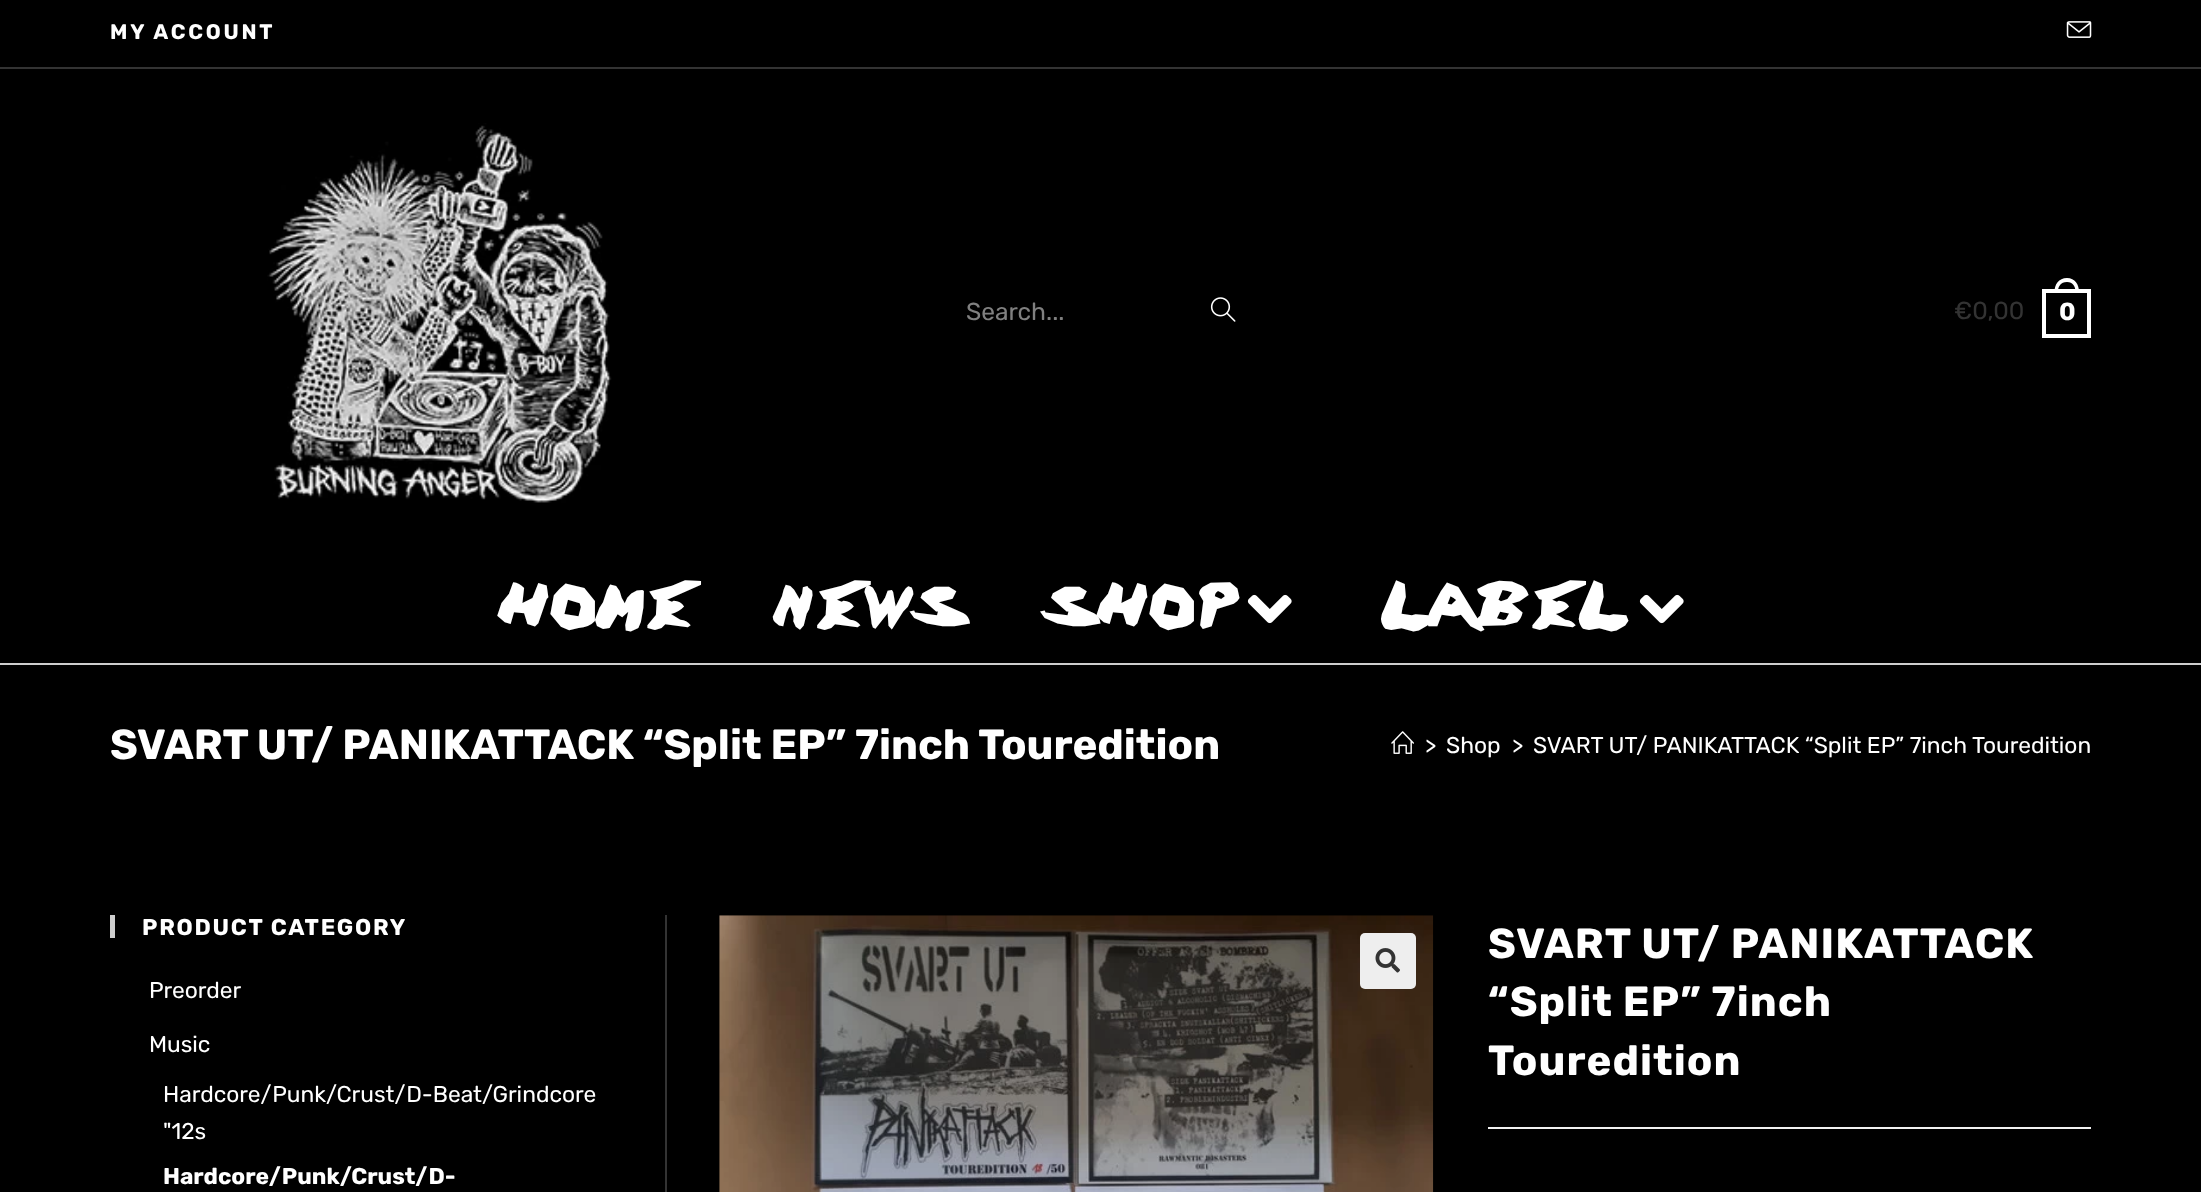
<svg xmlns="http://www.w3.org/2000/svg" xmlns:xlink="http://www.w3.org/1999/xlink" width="2201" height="1192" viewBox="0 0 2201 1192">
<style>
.cls-1{font:300 21px Rubik;letter-spacing:2.75px;fill:#ffffff}
.cls-2{font:300 24.5px 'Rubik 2';fill:#808080}
.cls-3{font:300 24.5px 'Rubik 2';fill:#333333}
.cls-4{font:300 24.5px Rubik;fill:#ffffff}
.cls-5{font:70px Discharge;letter-spacing:7px;fill:#ffffff}
.cls-6{font:300 42px Rubik;fill:#ffffff}
.cls-7{font:300 22.75px 'Rubik 2';fill:#ffffff}
.cls-8{font:300 22.75px Rubik;letter-spacing:1.75px;fill:#ffffff}
.cls-9{font:300 22.75px Rubik;fill:#ffffff}
.cls-10{font:300 42px Rubik;letter-spacing:1.05px;fill:#ffffff}
</style>
<rect width="100%" height="100%" fill="#000000"/>
<rect fill="#333333" x="0" y="67" width="2201" height="2"/>
<image xlink:href="image0.png" x="2066" y="21" width="26" height="17"/>
<rect fill="#cecece" x="0" y="663" width="2201" height="2"/>
<image xlink:href="image1.png" x="267" y="123" width="345" height="380"/>
<image xlink:href="image2.png" x="1210" y="297" width="26" height="25"/>
<rect fill="none" stroke="#ffffff" stroke-width="4" x="2044" y="291" width="45" height="45"/>
<path fill="#ffffff" fill-rule="evenodd" d="M2067 278C2075 278 2079 284.5 2079 292H2054.5C2054.5 284.5 2058.5 278 2067 278ZM2067 282C2073 282 2075.5 286.5 2075.5 292H2058C2058 286.5 2060.5 282 2067 282Z"/>
<image xlink:href="image3.png" x="1247" y="594" width="45" height="30"/>
<image xlink:href="image3.png" x="1639" y="594" width="45" height="30"/>
<image xlink:href="image4.png" x="1391" y="731" width="23" height="23"/>
<rect fill="#cecece" x="110" y="915" width="5" height="23"/>
<rect fill="#333333" x="665" y="915" width="2" height="277"/>
<image xlink:href="image5.png" x="719" y="915" width="715" height="277"/>
<rect fill="#eeeeee" x="1360" y="933" width="56" height="56" rx="5"/>
<image xlink:href="image6.png" x="1375" y="948" width="25" height="25"/>
<rect fill="#f1f1f1" x="1488" y="1127" width="603" height="2"/>
<text class="cls-1" x="110" y="39">MY ACCOUNT</text>
<text class="cls-2" x="966" y="320">Search...</text>
<text class="cls-3" x="1954" y="319">€0,00</text>
<text class="cls-4" x="2059" y="320">0</text>
<text class="cls-5" x="503" y="635">HOME</text>
<text class="cls-5" x="775" y="635">NEWS</text>
<text class="cls-5" x="1048" y="635">SHOP</text>
<text class="cls-5" x="1385" y="635">LABEL</text>
<text class="cls-6" x="110" y="759">SVART UT/ PANIKATTACK “Split EP” 7inch Touredition</text>
<text class="cls-7" x="1425" y="753">&gt;</text>
<text class="cls-7" x="1446" y="753">Shop</text>
<text class="cls-7" x="1512" y="753">&gt;</text>
<text class="cls-7" x="1533" y="753">SVART UT/ PANIKATTACK “Split EP” 7inch Touredition</text>
<text class="cls-8" x="142" y="935">PRODUCT CATEGORY</text>
<text class="cls-7" x="149" y="998">Preorder</text>
<text class="cls-7" x="149" y="1052">Music</text>
<text class="cls-7"><tspan x="163" y="1102">Hardcore/Punk/Crust/D-Beat/Grindcore</tspan><tspan x="163" y="1139">"12s</tspan></text>
<text class="cls-9" x="163" y="1184">Hardcore/Punk/Crust/D-</text>
<text class="cls-10"><tspan x="1488" y="958">SVART UT/ PANIKATTACK</tspan><tspan x="1488" y="1016">“Split EP” 7inch</tspan><tspan x="1488" y="1075">Touredition</tspan></text>
</svg>
